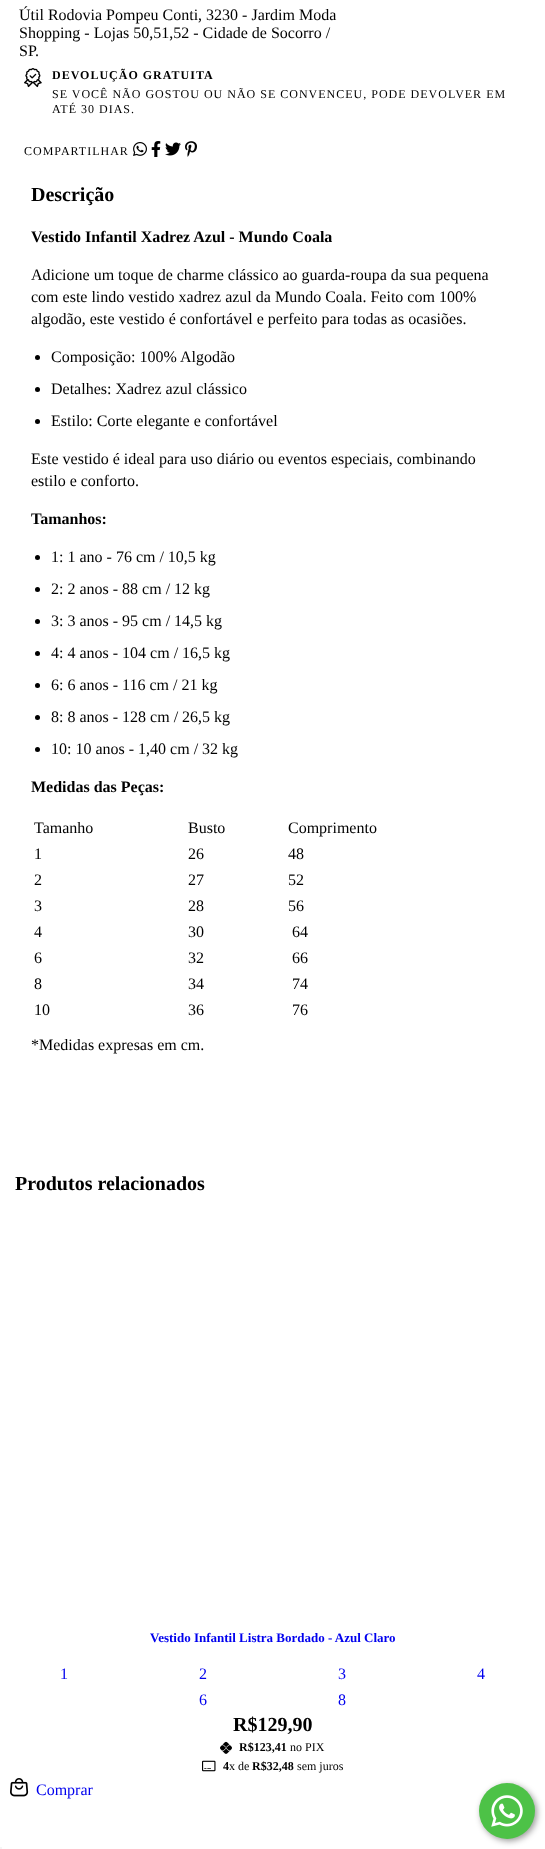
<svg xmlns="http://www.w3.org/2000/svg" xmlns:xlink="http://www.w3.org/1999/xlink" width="545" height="1849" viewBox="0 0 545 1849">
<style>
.cls-1{font:16px Liberation Serif;fill:#000000}
.cls-2{font:bold 12px Liberation Serif;letter-spacing:1px;fill:#000000}
.cls-3{font:12px Liberation Serif;letter-spacing:1px;fill:#000000}
.cls-4{font:bold 20px Liberation Serif;fill:#000000}
.cls-5{font:bold 16px Liberation Serif;fill:#000000}
.cls-6{font:bold 13px Liberation Serif;fill:#0000ee}
.cls-7{font:16px Liberation Serif;fill:#0000ee}
.cls-8{font:bold 12px Liberation Serif;fill:#000000}
.cls-9{font:12px Liberation Serif;fill:#000000}
</style>
<rect width="100%" height="100%" fill="#ffffff"/>
<image xlink:href="image0.png" x="24" y="68" width="18" height="20"/>
<image xlink:href="image1.png" x="133" y="142" width="14" height="14"/>
<image xlink:href="image2.png" x="151" y="141" width="10" height="16"/>
<image xlink:href="image3.png" x="165" y="142" width="16" height="14"/>
<image xlink:href="image4.png" x="185" y="141" width="12" height="16"/>
<circle fill="#000000" cx="37.5" cy="357.5" r="2.5"/>
<circle fill="#000000" cx="37.5" cy="389.5" r="2.5"/>
<circle fill="#000000" cx="37.5" cy="421.5" r="2.5"/>
<circle fill="#000000" cx="37.5" cy="557.5" r="2.5"/>
<circle fill="#000000" cx="37.5" cy="589.5" r="2.5"/>
<circle fill="#000000" cx="37.5" cy="621.5" r="2.5"/>
<circle fill="#000000" cx="37.5" cy="653.5" r="2.5"/>
<circle fill="#000000" cx="37.5" cy="685.5" r="2.5"/>
<circle fill="#000000" cx="37.5" cy="717.5" r="2.5"/>
<circle fill="#000000" cx="37.5" cy="749.5" r="2.5"/>
<image xlink:href="image5.png" x="220" y="1741" width="12" height="13"/>
<image xlink:href="image6.png" x="202" y="1760" width="14" height="12"/>
<image xlink:href="image7.png" x="10" y="1778" width="19" height="19"/>
<rect fill="#f5f5f5" x="0" y="1847" width="2" height="2"/>
<rect fill="#000000" fill-opacity="0.4" filter="blur(3px)" x="481" y="1785" width="56" height="56" rx="28"/>
<circle fill="#4dc247" cx="507" cy="1811" r="28"/>
<image xlink:href="image8.png" x="491" y="1795" width="32" height="32"/>
<text class="cls-1"><tspan x="19" y="20">Útil Rodovia Pompeu Conti, 3230 - Jardim Moda</tspan><tspan x="19" y="38">Shopping - Lojas 50,51,52 - Cidade de Socorro /</tspan><tspan x="19" y="56">SP.</tspan></text>
<text class="cls-2" x="52" y="79">DEVOLUÇÃO GRATUITA</text>
<text class="cls-3"><tspan x="52" y="98">SE VOCÊ NÃO GOSTOU OU NÃO SE CONVENCEU, PODE DEVOLVER EM</tspan><tspan x="52" y="113">ATÉ 30 DIAS.</tspan></text>
<text class="cls-3" x="24" y="155">COMPARTILHAR</text>
<text class="cls-4" x="31" y="201">Descrição</text>
<text class="cls-5" x="31" y="242">Vestido Infantil Xadrez Azul - Mundo Coala</text>
<text class="cls-1"><tspan x="31" y="280">Adicione um toque de charme clássico ao guarda-roupa da sua pequena</tspan><tspan x="31" y="302">com este lindo vestido xadrez azul da Mundo Coala. Feito com 100%</tspan><tspan x="31" y="324">algodão, este vestido é confortável e perfeito para todas as ocasiões.</tspan></text>
<text class="cls-1" x="51" y="362">Composição: 100% Algodão</text>
<text class="cls-1" x="51" y="394">Detalhes: Xadrez azul clássico</text>
<text class="cls-1" x="51" y="426">Estilo: Corte elegante e confortável</text>
<text class="cls-1"><tspan x="31" y="464">Este vestido é ideal para uso diário ou eventos especiais, combinando</tspan><tspan x="31" y="486">estilo e conforto.</tspan></text>
<text class="cls-5" x="31" y="524">Tamanhos:</text>
<text class="cls-1" x="51" y="562">1: 1 ano - 76 cm / 10,5 kg</text>
<text class="cls-1" x="51" y="594">2: 2 anos - 88 cm / 12 kg</text>
<text class="cls-1" x="51" y="626">3: 3 anos - 95 cm / 14,5 kg</text>
<text class="cls-1" x="51" y="658">4: 4 anos - 104 cm / 16,5 kg</text>
<text class="cls-1" x="51" y="690">6: 6 anos - 116 cm / 21 kg</text>
<text class="cls-1" x="51" y="722">8: 8 anos - 128 cm / 26,5 kg</text>
<text class="cls-1" x="51" y="754">10: 10 anos - 1,40 cm / 32 kg</text>
<text class="cls-5" x="31" y="792">Medidas das Peças:</text>
<text class="cls-1" x="34" y="833">Tamanho</text>
<text class="cls-1" x="188" y="833">Busto</text>
<text class="cls-1" x="288" y="833">Comprimento</text>
<text class="cls-1" x="34" y="859">1</text>
<text class="cls-1" x="188" y="859">26</text>
<text class="cls-1" x="288" y="859">48</text>
<text class="cls-1" x="34" y="885">2</text>
<text class="cls-1" x="188" y="885">27</text>
<text class="cls-1" x="288" y="885">52</text>
<text class="cls-1" x="34" y="911">3</text>
<text class="cls-1" x="188" y="911">28</text>
<text class="cls-1" x="288" y="911">56</text>
<text class="cls-1" x="34" y="937">4</text>
<text class="cls-1" x="188" y="937">30</text>
<text class="cls-1" x="292" y="937">64</text>
<text class="cls-1" x="34" y="963">6</text>
<text class="cls-1" x="188" y="963">32</text>
<text class="cls-1" x="292" y="963">66</text>
<text class="cls-1" x="34" y="989">8</text>
<text class="cls-1" x="188" y="989">34</text>
<text class="cls-1" x="292" y="989">74</text>
<text class="cls-1" x="34" y="1015">10</text>
<text class="cls-1" x="188" y="1015">36</text>
<text class="cls-1" x="292" y="1015">76</text>
<text class="cls-1" x="31" y="1050">*Medidas expresas em cm.</text>
<text class="cls-4" x="15" y="1190">Produtos relacionados</text>
<text class="cls-6" x="150" y="1642">Vestido Infantil Listra Bordado - Azul Claro</text>
<text class="cls-7" x="60" y="1679">1</text>
<text class="cls-7" x="199" y="1679">2</text>
<text class="cls-7" x="338" y="1679">3</text>
<text class="cls-7" x="477" y="1679">4</text>
<text class="cls-7" x="199" y="1705">6</text>
<text class="cls-7" x="338" y="1705">8</text>
<text class="cls-4" x="233" y="1731">R$129,90</text>
<text class="cls-8" x="239" y="1751">R$123,41</text>
<text class="cls-9" x="290" y="1751">no PIX</text>
<text class="cls-8" x="223" y="1770">4</text>
<text class="cls-9" x="229" y="1770">x de</text>
<text class="cls-8" x="252" y="1770">R$32,48</text>
<text class="cls-9" x="297" y="1770">sem juros</text>
<text class="cls-7" x="36" y="1795">Comprar</text>
</svg>
